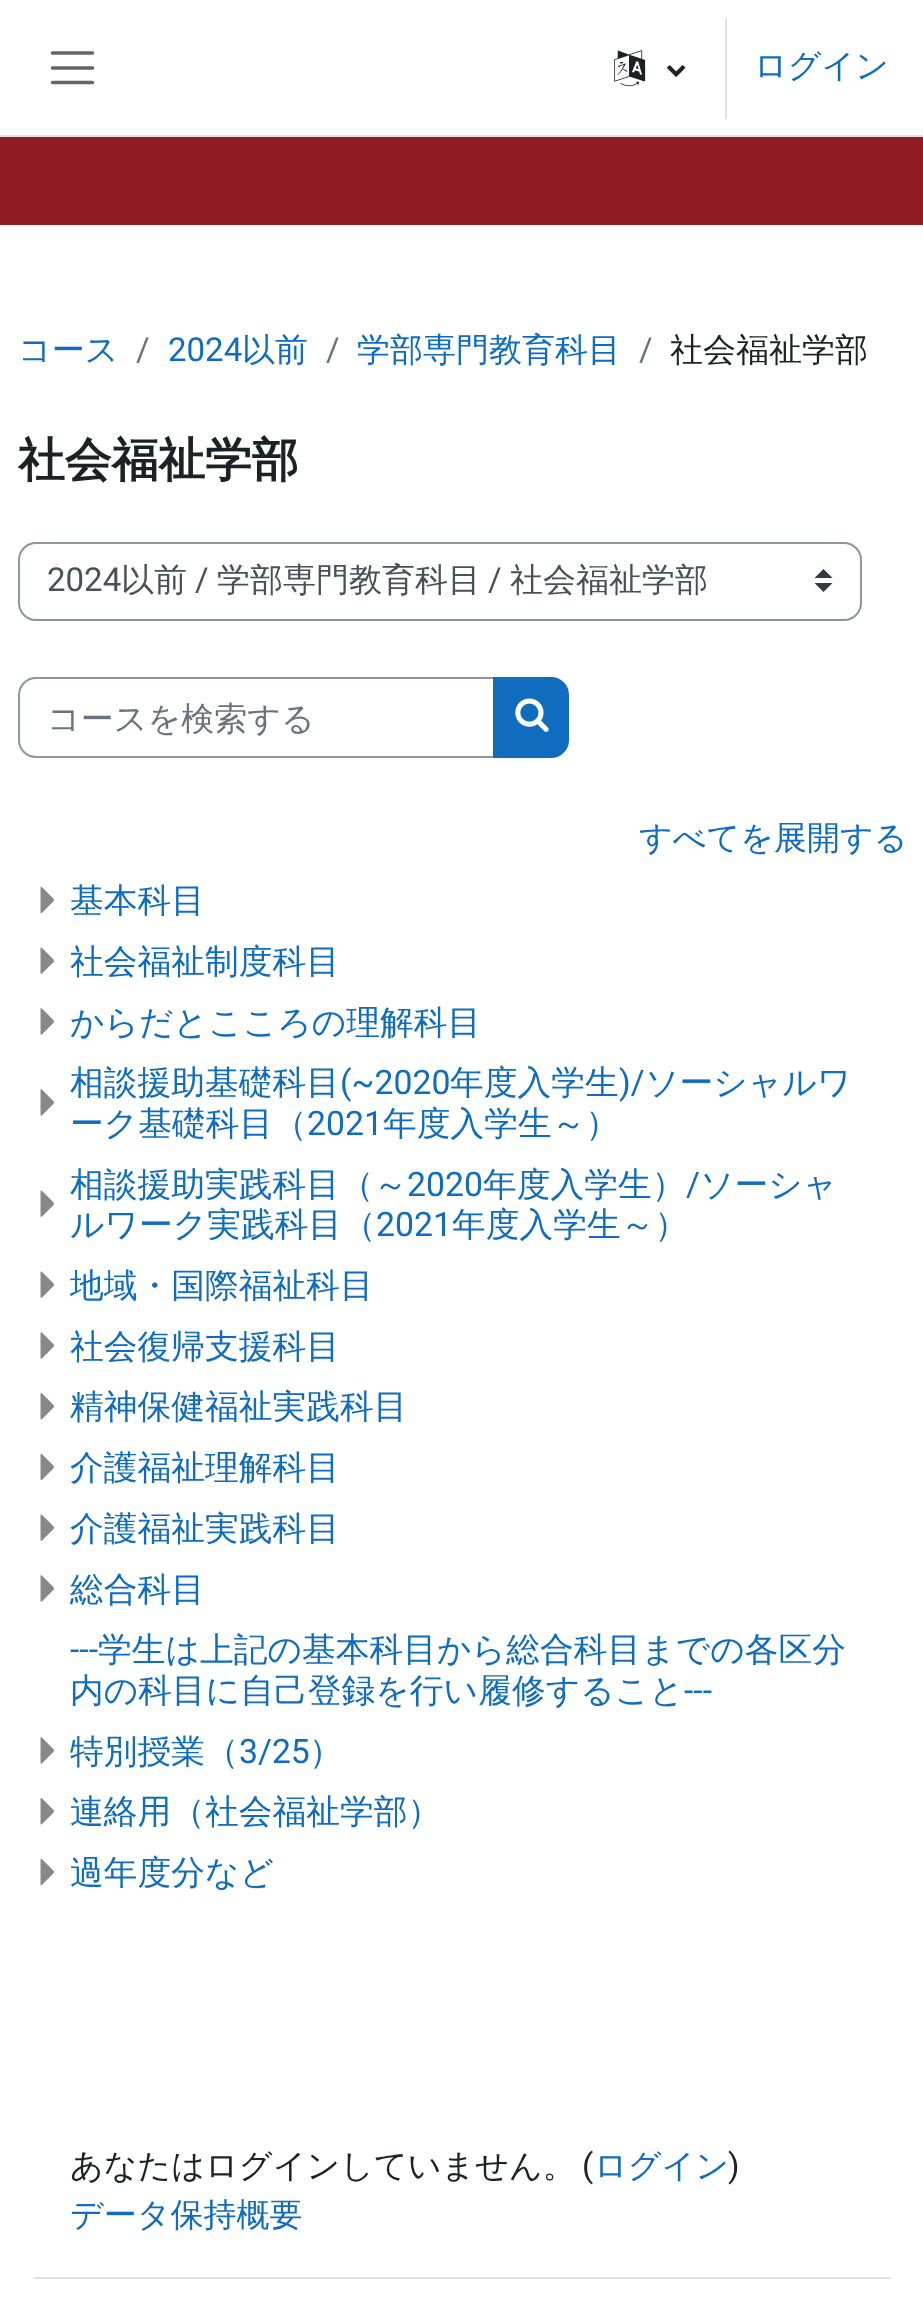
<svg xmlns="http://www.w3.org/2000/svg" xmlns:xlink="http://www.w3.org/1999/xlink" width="923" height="2304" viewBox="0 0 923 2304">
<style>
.cls-1{font:500 33px WenQuanYi Zen Hei;fill:#0f6cbf}
.cls-2{font:33px Roboto;fill:#6a737b}
.cls-3{font:33px Roboto;fill:#0f6cbf}
.cls-4{font:500 33px WenQuanYi Zen Hei;fill:#1d2125}
.cls-5{font:bold 46.75px WenQuanYi Zen Hei;fill:#1d2125}
.cls-6{font:33px Roboto;fill:#495057}
.cls-7{font:500 33px WenQuanYi Zen Hei;fill:#495057}
.cls-8{font:500 33px WenQuanYi Zen Hei;fill:#6a737b}
.cls-9{font:500 33.75px WenQuanYi Zen Hei;fill:#0f6cbf}
.cls-10{font:33.75px Roboto;fill:#0f6cbf}
.cls-11{font:33px Roboto;fill:#1d2125}
</style>
<rect width="100%" height="100%" fill="#ffffff"/>
<rect fill="#dee2e6" x="0" y="135" width="923" height="2"/>
<path fill="none" stroke="#666666" stroke-width="3.6" stroke-linecap="round" d="M52.5 53H92.5M52.5 68H92.5M52.5 82.5H92.5"/>
<image xlink:href="image0.png" x="614" y="50" width="32" height="37"/>
<image xlink:href="image1.png" x="667" y="65" width="19" height="12"/>
<rect fill="#dee2e6" x="725" y="18" width="2" height="101"/>
<rect fill="#911d22" x="0" y="137" width="923" height="88"/>
<path fill="#343a40" d="M823.5 569L814.5 578H832.5ZM823.5 592L814.5 583H832.5Z"/>
<rect fill="none" stroke="#8f959e" stroke-width="2" x="19" y="543" width="842" height="77" rx="17"/>
<path fill="none" stroke="#8f959e" stroke-width="2" d="M36 678H494V757H36C26.5 757 19 749.5 19 740V695C19 685.5 26.5 678 36 678Z"/>
<path fill="#0f6cbf" stroke="#0f6cbf" stroke-width="2" d="M494 678H551C560.5 678 568 685.5 568 695V740C568 749.5 560.5 757 551 757H494Z"/>
<image xlink:href="image2.png" x="515" y="698" width="34" height="34"/>
<image xlink:href="image3.png" x="40" y="886" width="14" height="28"/>
<image xlink:href="image4.png" x="40" y="947" width="14" height="27"/>
<image xlink:href="image5.png" x="40" y="1008" width="14" height="27"/>
<image xlink:href="image6.png" x="40" y="1089" width="14" height="27"/>
<image xlink:href="image4.png" x="40" y="1190" width="14" height="27"/>
<image xlink:href="image4.png" x="40" y="1271" width="14" height="27"/>
<image xlink:href="image6.png" x="40" y="1332" width="14" height="27"/>
<image xlink:href="image7.png" x="40" y="1393" width="14" height="27"/>
<image xlink:href="image3.png" x="40" y="1453" width="14" height="28"/>
<image xlink:href="image8.png" x="40" y="1514" width="14" height="27"/>
<image xlink:href="image6.png" x="40" y="1575" width="14" height="27"/>
<image xlink:href="image6.png" x="40" y="1737" width="14" height="27"/>
<image xlink:href="image7.png" x="40" y="1798" width="14" height="27"/>
<image xlink:href="image3.png" x="40" y="1858" width="14" height="28"/>
<rect fill="#dee2e6" x="34" y="2277" width="857" height="2"/>
<text class="cls-1" x="754" y="77">ログイン</text>
<text class="cls-1" x="18" y="361">コース</text>
<text class="cls-2" x="136" y="361">/</text>
<text class="cls-3" x="168" y="361">2024</text>
<text class="cls-1" x="242" y="361">以前</text>
<text class="cls-2" x="326" y="361">/</text>
<text class="cls-1" x="357" y="361">学部専門教育科目</text>
<text class="cls-2" x="639" y="361">/</text>
<text class="cls-4" x="670" y="361">社会福祉学部</text>
<text class="cls-5" x="18" y="476">社会福祉学部</text>
<text class="cls-6" x="47" y="591">2024</text>
<text class="cls-7" x="121" y="591">以前</text>
<text class="cls-6" x="195" y="591">/</text>
<text class="cls-7" x="217" y="591">学部専門教育科目</text>
<text class="cls-6" x="488" y="591">/</text>
<text class="cls-7" x="510" y="591">社会福祉学部</text>
<text class="cls-8" x="47" y="730">コースを検索する</text>
<text class="cls-1" x="639" y="849">すべてを展開する</text>
<text class="cls-9"><tspan x="70" y="912">基本科目</tspan><tspan x="70" y="973">社会福祉制度科目</tspan><tspan x="70" y="1034">からだとこころの理解科目</tspan><tspan x="70" y="1094">相談援助基礎科目</tspan></text>
<text class="cls-10" x="340" y="1094">(~2020</text>
<text class="cls-9" x="450" y="1094">年度入学生</text>
<text class="cls-10" x="619" y="1094">)/</text>
<text class="cls-9" x="645" y="1094">ソーシャルワ</text>
<text class="cls-9" x="70" y="1135">ーク基礎科目（</text>
<text class="cls-10" x="307" y="1135">2021</text>
<text class="cls-9" x="383" y="1135">年度入学生～）</text>
<text class="cls-9" x="70" y="1196">相談援助実践科目（～</text>
<text class="cls-10" x="407" y="1196">2020</text>
<text class="cls-9" x="483" y="1196">年度入学生）</text>
<text class="cls-10" x="686" y="1196">/</text>
<text class="cls-9" x="700" y="1196">ソーシャ</text>
<text class="cls-9" x="70" y="1236">ルワーク実践科目（</text>
<text class="cls-10" x="376" y="1236">2021</text>
<text class="cls-9" x="452" y="1236">年度入学生～）</text>
<text class="cls-9"><tspan x="70" y="1297">地域・国際福祉科目</tspan><tspan x="70" y="1358">社会復帰支援科目</tspan><tspan x="70" y="1418">精神保健福祉実践科目</tspan><tspan x="70" y="1479">介護福祉理解科目</tspan><tspan x="70" y="1540">介護福祉実践科目</tspan><tspan x="70" y="1601">総合科目</tspan></text>
<text class="cls-10" x="70" y="1661">---</text>
<text class="cls-9" x="98" y="1661">学生は上記の基本科目から総合科目までの各区分</text>
<text class="cls-9" x="70" y="1702">内の科目に自己登録を行い履修すること</text>
<text class="cls-10" x="684" y="1702">---</text>
<text class="cls-9" x="70" y="1763">特別授業（</text>
<text class="cls-10" x="239" y="1763">3/25</text>
<text class="cls-9" x="309" y="1763">）</text>
<text class="cls-9"><tspan x="70" y="1823">連絡用（社会福祉学部）</tspan><tspan x="70" y="1884">過年度分など</tspan></text>
<text class="cls-4" x="70" y="2177">あなたはログインしていません。</text>
<text class="cls-11" x="582" y="2177">(</text>
<text class="cls-1" x="594" y="2177">ログイン</text>
<text class="cls-11" x="728" y="2177">)</text>
<text class="cls-1" x="70" y="2226">データ保持概要</text>
</svg>
